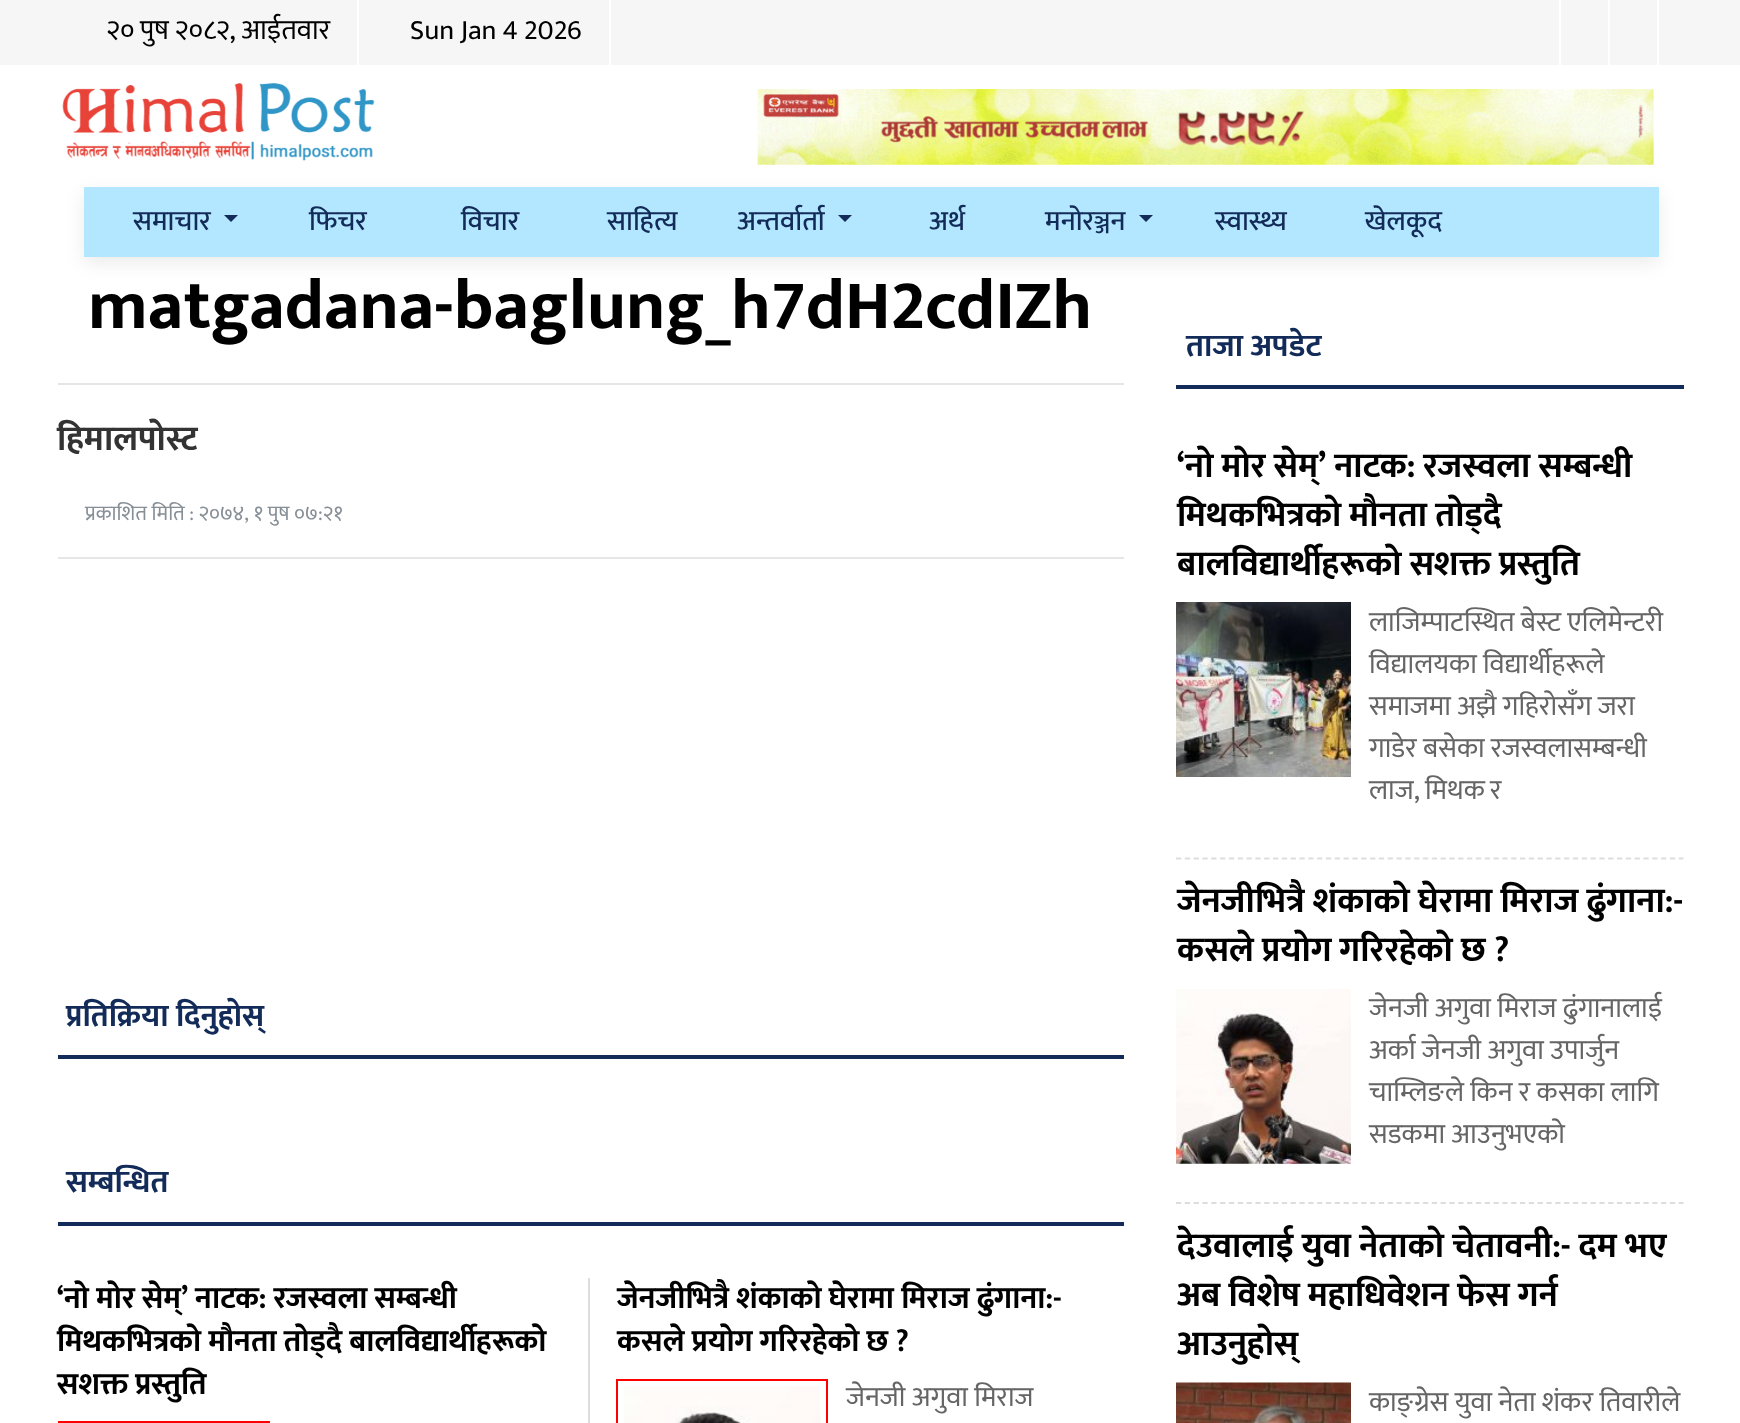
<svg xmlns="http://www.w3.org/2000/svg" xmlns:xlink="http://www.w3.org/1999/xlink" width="1740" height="1423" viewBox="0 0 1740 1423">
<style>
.cls-1{font:28px Mukta;fill:#000000}
.cls-2{font:500 28px Mukta;fill:#132b58}
.cls-3{font:bold 70px Mukta;fill:#000000}
.cls-4{font:bold 35px Mukta;fill:#333333}
.cls-5{font:21px Mukta;fill:#868e96}
.cls-6{font:bold 31.5px Mukta;fill:#132b58}
.cls-7{font:bold 30.75px Mukta;fill:#000000}
.cls-8{font:28px Mukta;fill:#656565}
.cls-9{font:bold 35px Mukta;fill:#000000}
</style>
<rect width="100%" height="100%" fill="#ffffff"/>
<rect fill="#f6f6f6" x="0" y="0" width="1740" height="65"/>
<rect fill="#ffffff" x="357" y="0" width="2" height="65"/>
<rect fill="#ffffff" x="609" y="0" width="2" height="65"/>
<rect fill="#ffffff" x="1559" y="0" width="2" height="65"/>
<rect fill="#ffffff" x="1608" y="0" width="2" height="65"/>
<rect fill="#ffffff" x="1657" y="0" width="2" height="65"/>
<image xlink:href="image0.png" x="62" y="83" width="313" height="78"/>
<image xlink:href="image1.png" x="757" y="89" width="897" height="76"/>
<rect fill="#000000" fill-opacity="0.08" filter="blur(9px)" x="84" y="193" width="1575" height="70"/>
<rect fill="#b3e7ff" x="84" y="187" width="1575" height="70"/>
<path fill="#132b58" d="M224 215H238L231 222Z"/>
<path fill="#132b58" d="M838 215H852L845 222Z"/>
<path fill="#132b58" d="M1139 215H1153L1146 222Z"/>
<rect fill="#e6e6e6" x="58" y="383" width="1066" height="2"/>
<rect fill="#e6e6e6" x="58" y="557" width="1066" height="2"/>
<rect fill="#132b58" x="58" y="1055" width="1066" height="4"/>
<rect fill="#132b58" x="58" y="1222" width="1066" height="4"/>
<rect fill="#dddddd" x="588" y="1278" width="2" height="145"/>
<rect fill="none" stroke="#ff0000" stroke-width="2" x="59" y="1422" width="210" height="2"/>
<rect fill="none" stroke="#ff0000" stroke-width="2" x="617" y="1380" width="210" height="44"/>
<image xlink:href="image2.png" x="623" y="1386" width="198" height="37"/>
<rect fill="#132b58" x="1176" y="385" width="508" height="4"/>
<path fill="none" stroke="#dddddd" stroke-width="1.8" stroke-dasharray="5.25 3.57" d="M1176 858.5H1683.5"/>
<image xlink:href="image3.png" x="1176" y="602" width="175" height="175"/>
<path fill="none" stroke="#dddddd" stroke-width="1.8" stroke-dasharray="5.25 3.57" d="M1176 1203H1683.5"/>
<image xlink:href="image4.png" x="1176" y="989" width="175" height="175"/>
<image xlink:href="image5.png" x="1176" y="1382" width="175" height="41"/>
<text class="cls-1" x="106" y="39" word-spacing="-0.5">२० पुष २०८२, आईतवार</text>
<text class="cls-1" x="410" y="39">Sun Jan 4 2026</text>
<text class="cls-2" x="133" y="230">समाचार</text>
<text class="cls-2" x="309" y="230">फिचर</text>
<text class="cls-2" x="461" y="230">विचार</text>
<text class="cls-2" x="607" y="230">साहित्य</text>
<text class="cls-2" x="737" y="230">अन्तर्वार्ता</text>
<text class="cls-2" x="929" y="230">अर्थ</text>
<text class="cls-2" x="1045" y="230">मनोरञ्जन</text>
<text class="cls-2" x="1215" y="230">स्वास्थ्य</text>
<text class="cls-2" x="1365" y="230">खेलकूद</text>
<text class="cls-3" x="88" y="328">matgadana-baglung_h7dH2cdIZh</text>
<text class="cls-4" x="57" y="450">हिमालपोस्ट</text>
<text class="cls-5" x="85" y="520">प्रकाशित मिति : २०७४, १ पुष ०७:२१</text>
<text class="cls-6" x="66" y="1026">प्रतिक्रिया दिनुहोस्</text>
<text class="cls-6" x="66" y="1192">सम्बन्धित</text>
<text class="cls-7"><tspan x="57" y="1308">‘नो मोर सेम्’ नाटक: रजस्वला सम्बन्धी</tspan><tspan x="57" y="1351">मिथकभित्रको मौनता तोड्दै बालविद्यार्थीहरूको</tspan><tspan x="57" y="1394">सशक्त प्रस्तुति</tspan></text>
<text class="cls-7"><tspan x="617" y="1308">जेनजीभित्रै शंकाको घेरामा मिराज ढुंगाना:-</tspan><tspan x="617" y="1351">कसले प्रयोग गरिरहेको छ ?</tspan></text>
<text class="cls-8" x="846" y="1406">जेनजी अगुवा मिराज</text>
<text class="cls-6" x="1186" y="356">ताजा अपडेट</text>
<text class="cls-9"><tspan x="1177" y="477">‘नो मोर सेम्’ नाटक: रजस्वला सम्बन्धी</tspan><tspan x="1177" y="526">मिथकभित्रको मौनता तोड्दै</tspan><tspan x="1177" y="575">बालविद्यार्थीहरूको सशक्त प्रस्तुति</tspan></text>
<text class="cls-8"><tspan x="1369" y="631">लाजिम्पाटस्थित बेस्ट एलिमेन्टरी</tspan><tspan x="1369" y="673">विद्यालयका विद्यार्थीहरूले</tspan><tspan x="1369" y="715">समाजमा अझै गहिरोसँग जरा</tspan><tspan x="1369" y="757">गाडेर बसेका रजस्वलासम्बन्धी</tspan><tspan x="1369" y="799" word-spacing="-1">लाज, मिथक र</tspan></text>
<text class="cls-9"><tspan x="1177" y="912">जेनजीभित्रै शंकाको घेरामा मिराज ढुंगाना:-</tspan><tspan x="1177" y="961">कसले प्रयोग गरिरहेको छ ?</tspan></text>
<text class="cls-8"><tspan x="1369" y="1017">जेनजी अगुवा मिराज ढुंगानालाई</tspan><tspan x="1369" y="1059">अर्का जेनजी अगुवा उपार्जुन</tspan><tspan x="1369" y="1101">चाम्लिङले किन र कसका लागि</tspan><tspan x="1369" y="1143">सडकमा आउनुभएको</tspan></text>
<text class="cls-9"><tspan x="1177" y="1257">देउवालाई युवा नेताको चेतावनी:- दम भए</tspan><tspan x="1177" y="1306">अब विशेष महाधिवेशन फेस गर्न</tspan><tspan x="1177" y="1355">आउनुहोस्</tspan></text>
<text class="cls-8" x="1369" y="1411">काङ्ग्रेस युवा नेता शंकर तिवारीले</text>
</svg>
